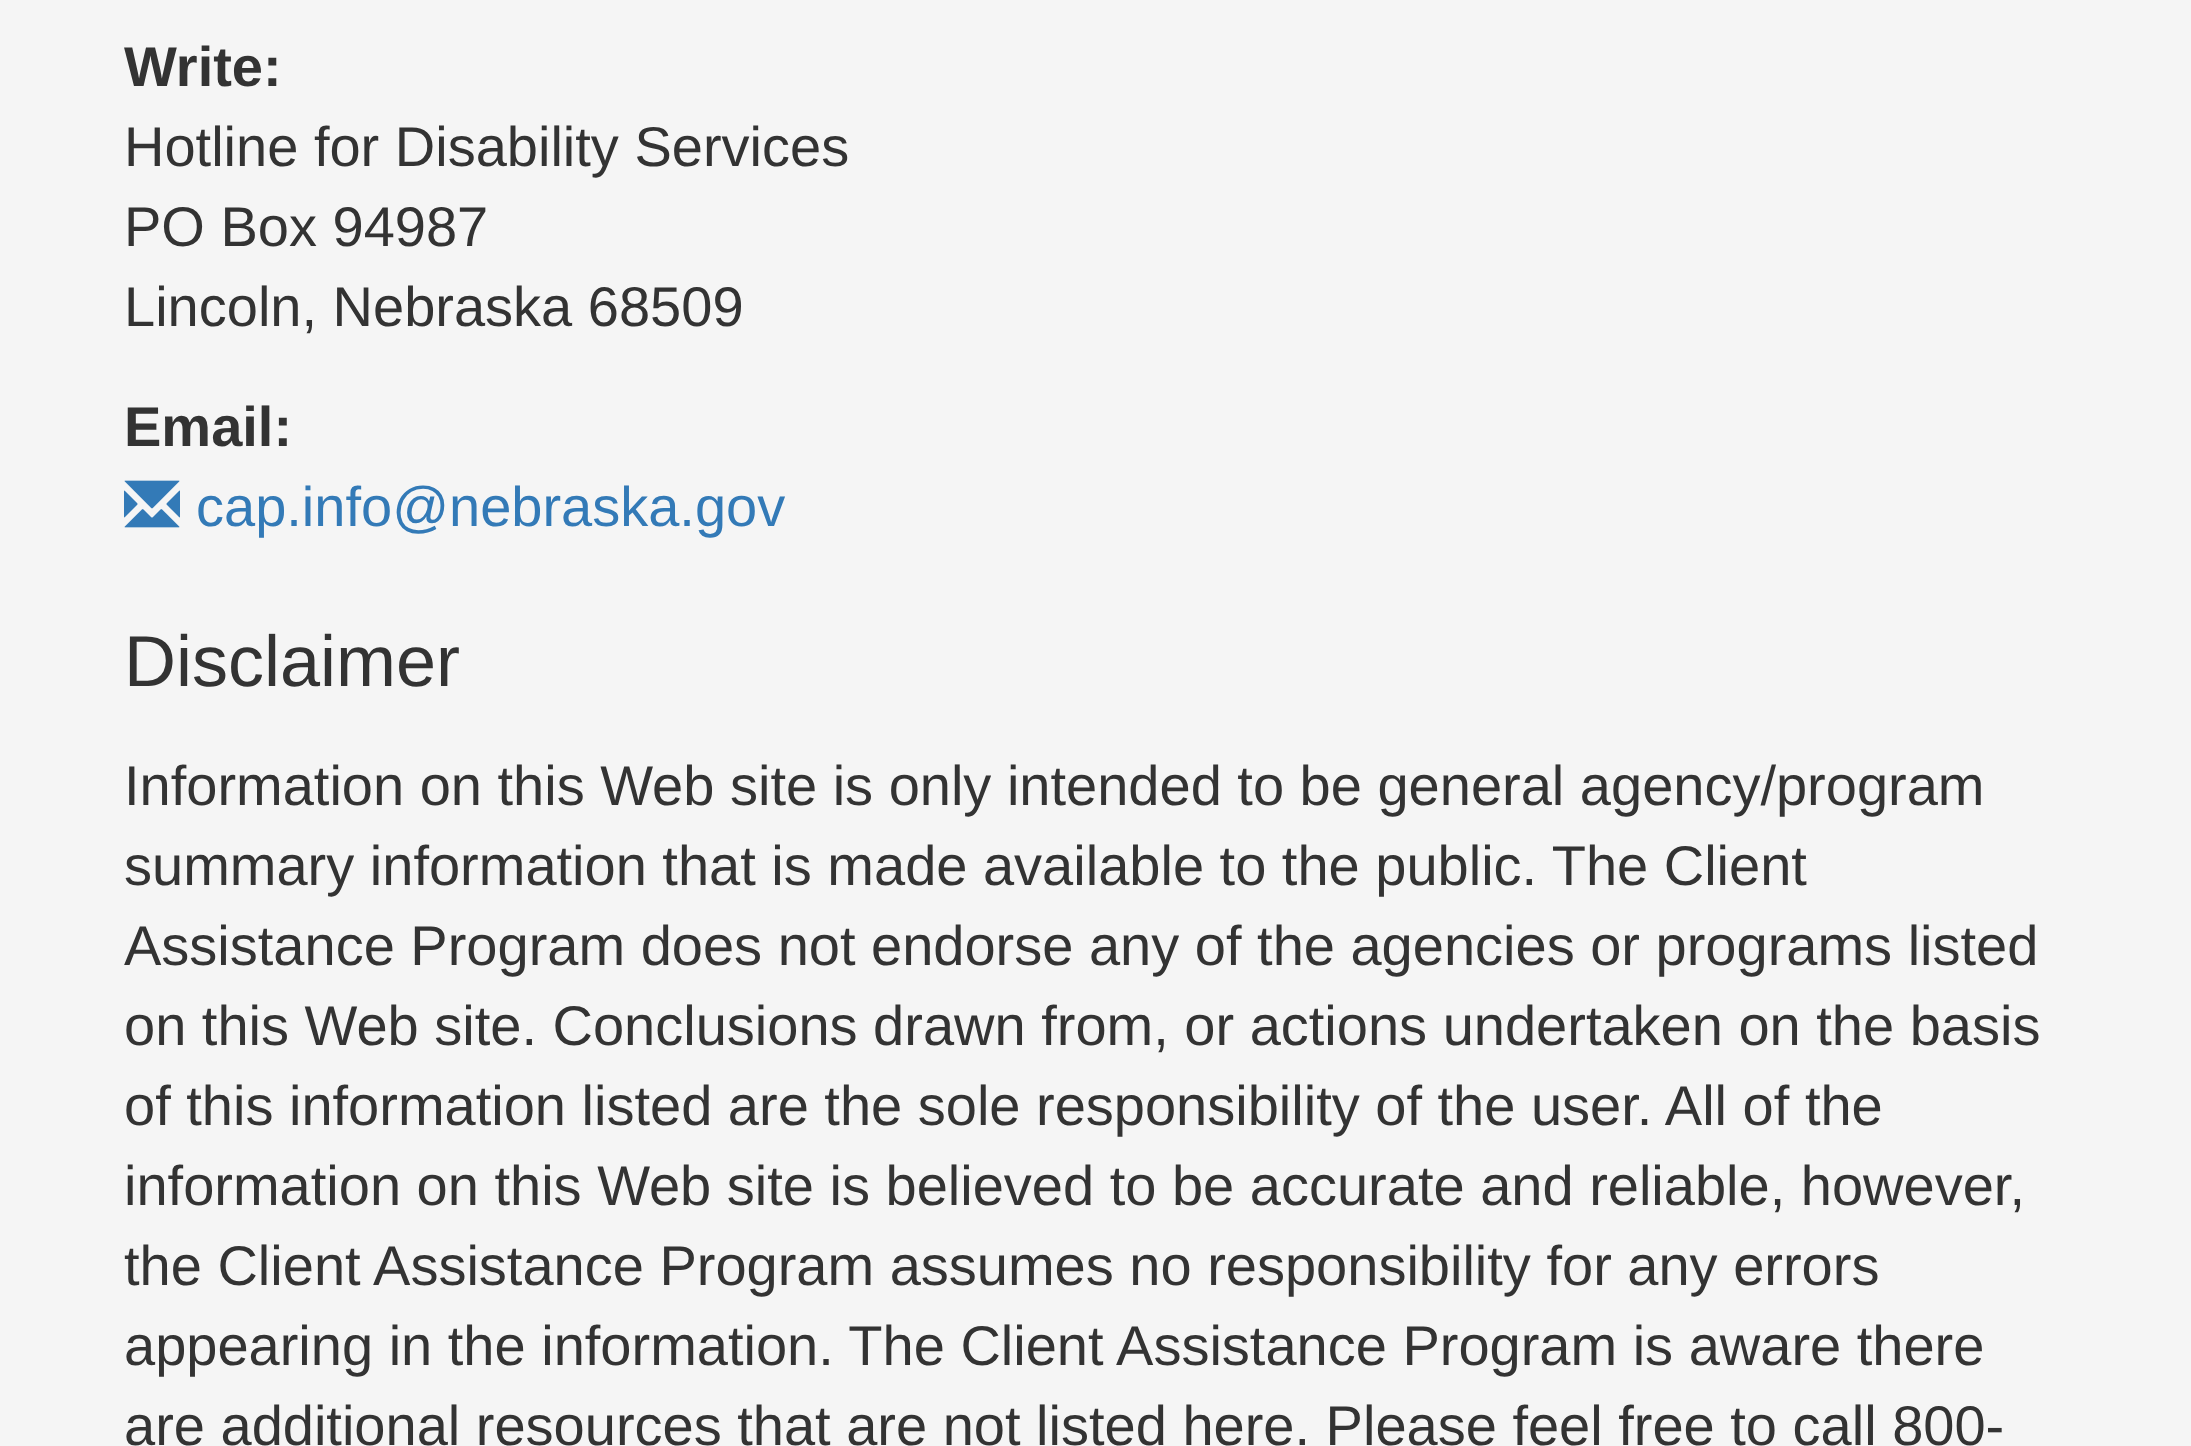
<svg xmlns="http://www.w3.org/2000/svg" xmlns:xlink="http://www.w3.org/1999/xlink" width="2191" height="1446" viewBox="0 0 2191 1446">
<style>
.cls-1{font:bold 56px Liberation Sans;fill:#333333}
.cls-2{font:56px Liberation Sans;fill:#333333}
.cls-3{font:56px Liberation Sans;fill:#337ab7}
.cls-4{font:72px Liberation Sans;fill:#333333}
</style>
<rect width="100%" height="100%" fill="#f5f5f5"/>
<image xlink:href="image0.png" x="124" y="480" width="56" height="48"/>
<text class="cls-1" x="124" y="86">Write:</text>
<text class="cls-2"><tspan x="124" y="166">Hotline for Disability Services</tspan><tspan x="124" y="246">PO Box 94987</tspan><tspan x="124" y="326">Lincoln, Nebraska 68509</tspan></text>
<text class="cls-1" x="124" y="446">Email:</text>
<text class="cls-3" x="196" y="526">cap.info@nebraska.gov</text>
<text class="cls-4" x="124" y="686">Disclaimer</text>
<text class="cls-2"><tspan x="124" y="805">Information on this Web site is only intended to be general agency/program</tspan><tspan x="124" y="885">summary information that is made available to the public. The Client</tspan><tspan x="124" y="965">Assistance Program does not endorse any of the agencies or programs listed</tspan><tspan x="124" y="1045">on this Web site. Conclusions drawn from, or actions undertaken on the basis</tspan><tspan x="124" y="1125">of this information listed are the sole responsibility of the user. All of the</tspan><tspan x="124" y="1205">information on this Web site is believed to be accurate and reliable, however,</tspan><tspan x="124" y="1285">the Client Assistance Program assumes no responsibility for any errors</tspan><tspan x="124" y="1365">appearing in the information. The Client Assistance Program is aware there</tspan><tspan x="124" y="1445">are additional resources that are not listed here. Please feel free to call 800-</tspan></text>
</svg>
